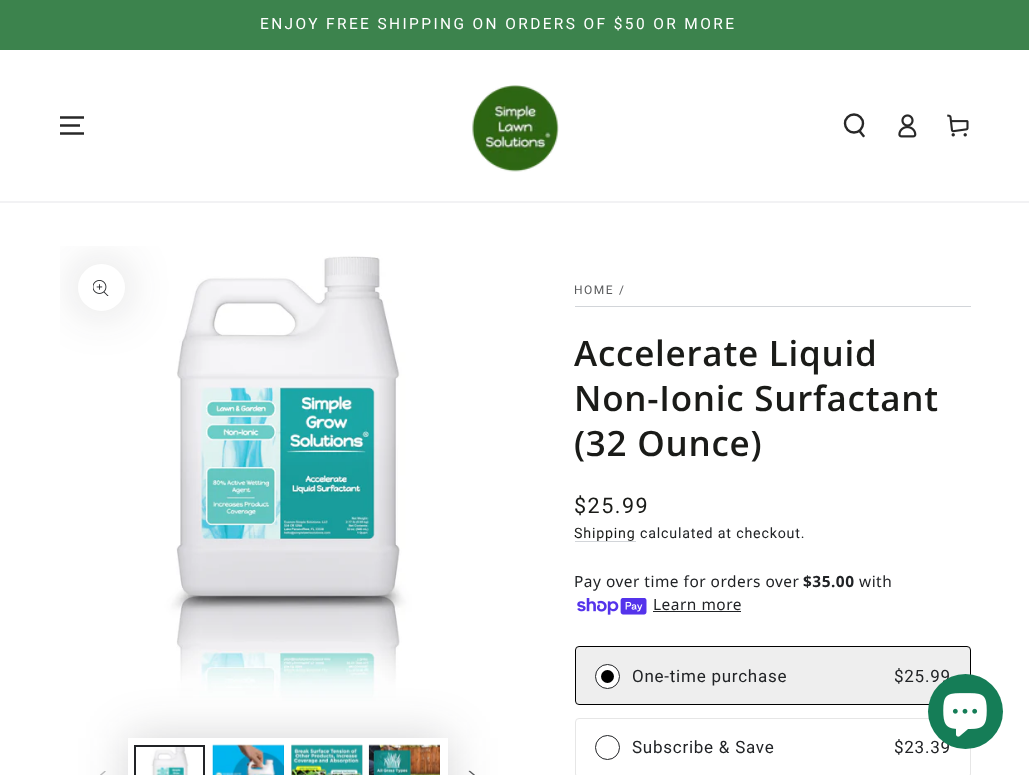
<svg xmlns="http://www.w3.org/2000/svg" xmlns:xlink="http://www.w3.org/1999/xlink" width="1029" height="775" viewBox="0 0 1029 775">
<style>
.cls-1{font:15.45px Roboto;letter-spacing:2.4px;fill:#ffffff}
.cls-2{font:12px Roboto;letter-spacing:1.5px;fill:#595a5c}
.cls-3{font:600 35px Open Sans;letter-spacing:0.75px;fill:#1a1b18}
.cls-4{font:21.5px Roboto;letter-spacing:1.5px;fill:#1a1b18}
.cls-5{font:14.25px Roboto;letter-spacing:0.8px;fill:#1a1b18}
.cls-6{font:14.25px Roboto;letter-spacing:0.8px;fill:#212326}
.cls-7{font:15.45px Noto Sans;letter-spacing:0.5px;fill:#212326}
.cls-8{font:bold 15.45px Noto Sans;letter-spacing:0.5px;fill:#212326}
.cls-9{font:17px Roboto;letter-spacing:0.75px;fill:#212326}
</style>
<defs>
<clipPath id="clip1"><rect x="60" y="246" width="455" height="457"/></clipPath>
</defs>
<rect width="100%" height="100%" fill="#ffffff"/>
<rect fill="#3c834d" x="0" y="0" width="1029" height="50"/>
<image xlink:href="image4.png" x="60" y="246" width="455" height="457"/>
<g clip-path="url(#clip1)">
<rect fill="#212326" fill-opacity="0.2" filter="blur(24px)" x="78" y="264" width="47" height="47" rx="23.5"/>
</g>
<rect fill="#f2f2f4" x="0" y="201" width="1029" height="2"/>
<path fill="none" stroke="#282828" stroke-width="2.4" d="M60 133.5H84M60 125.5H80M60 117.5H84"/>
<image xlink:href="image0.png" x="472" y="85" width="87" height="87"/>
<circle fill="none" stroke="#282828" stroke-width="2.4" cx="854" cy="123.5" r="9"/>
<path fill="none" stroke="#282828" stroke-width="2.4" stroke-linecap="round" d="M859.5 131L863.5 136"/>
<image xlink:href="image1.png" x="898" y="114" width="19" height="24"/>
<image xlink:href="image2.png" x="947" y="114" width="22" height="23"/>
<circle fill="#ffffff" cx="101.5" cy="287.5" r="23.5"/>
<image xlink:href="image3.png" x="93" y="280" width="16" height="16"/>
<rect fill="#212326" fill-opacity="0.2" filter="blur(24px)" x="128" y="738" width="320" height="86"/>
<rect fill="#ffffff" x="128" y="738" width="320" height="37"/>
<image xlink:href="image5.png" x="136" y="747" width="67" height="28"/>
<rect fill="none" stroke="#212326" stroke-width="2" x="135" y="746" width="69" height="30"/>
<rect fill="#f3f3f3" x="213" y="745" width="71" height="1"/>
<image xlink:href="image6.png" x="212" y="744" width="72" height="31"/>
<rect fill="none" stroke="#212326" stroke-opacity="0.04" x="213.5" y="745.5" width="70" height="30"/>
<rect fill="#f3f3f3" x="291" y="745" width="72" height="30"/>
<image xlink:href="image7.png" x="291" y="744" width="72" height="31"/>
<rect fill="none" stroke="#212326" stroke-opacity="0.04" x="291.5" y="745.5" width="71" height="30"/>
<rect fill="#f3f3f3" x="369" y="745" width="71" height="1"/>
<image xlink:href="image8.png" x="368" y="744" width="72" height="31"/>
<rect fill="none" stroke="#212326" stroke-opacity="0.04" x="369.5" y="745.5" width="70" height="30"/>
<image xlink:href="image9.png" x="100" y="771" width="6" height="4"/>
<image xlink:href="image10.png" x="468" y="770" width="7" height="5"/>
<rect fill="#d2d5d9" x="575" y="306" width="396" height="1"/>
<rect fill="#d2d5d9" x="575" y="541" width="61" height="1"/>
<image xlink:href="image11.png" x="577" y="598" width="70" height="17"/>
<rect fill="#212326" x="653" y="611" width="88" height="1"/>
<rect fill="#eeeeee" stroke="#000000" x="575.5" y="646.5" width="395" height="58" rx="3.5"/>
<circle fill="#ffffff" stroke="#212326" cx="607.5" cy="676.5" r="12"/>
<circle fill="#000000" cx="607.5" cy="676.5" r="6.5"/>
<rect fill="none" stroke="#e6e6e6" x="575.5" y="718.5" width="395" height="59" rx="3.5"/>
<circle fill="none" stroke="#212326" cx="607.5" cy="747.5" r="12"/>
<text class="cls-1" x="260" y="29">ENJOY FREE SHIPPING ON ORDERS OF $50 OR MORE</text>
<text class="cls-2" x="574" y="294">HOME</text>
<text class="cls-2" x="619" y="294">/</text>
<text class="cls-3"><tspan x="574" y="366">Accelerate Liquid</tspan><tspan x="574" y="411">Non-Ionic Surfactant</tspan><tspan x="574" y="456">(32 Ounce)</tspan></text>
<text class="cls-4" x="574" y="513">$25.99</text>
<text class="cls-5" x="574" y="538">Shipping</text>
<text class="cls-6" x="640" y="538">calculated at checkout.</text>
<text class="cls-7" x="574" y="587">Pay over time for orders over</text>
<text class="cls-8" x="803" y="587">$35.00</text>
<text class="cls-7" x="859" y="587">with</text>
<text class="cls-7" x="653" y="610">Learn more</text>
<text class="cls-9" x="632" y="682">One-time purchase</text>
<text class="cls-9" x="894" y="682">$25.99</text>
<text class="cls-9" x="632" y="753">Subscribe &amp; Save</text>
<text class="cls-9" x="894" y="753">$23.39</text>
<circle fill="#157d57" cx="965.5" cy="711.5" r="37.5"/>
<image xlink:href="image12.png" x="943" y="693" width="44" height="44"/>
</svg>
